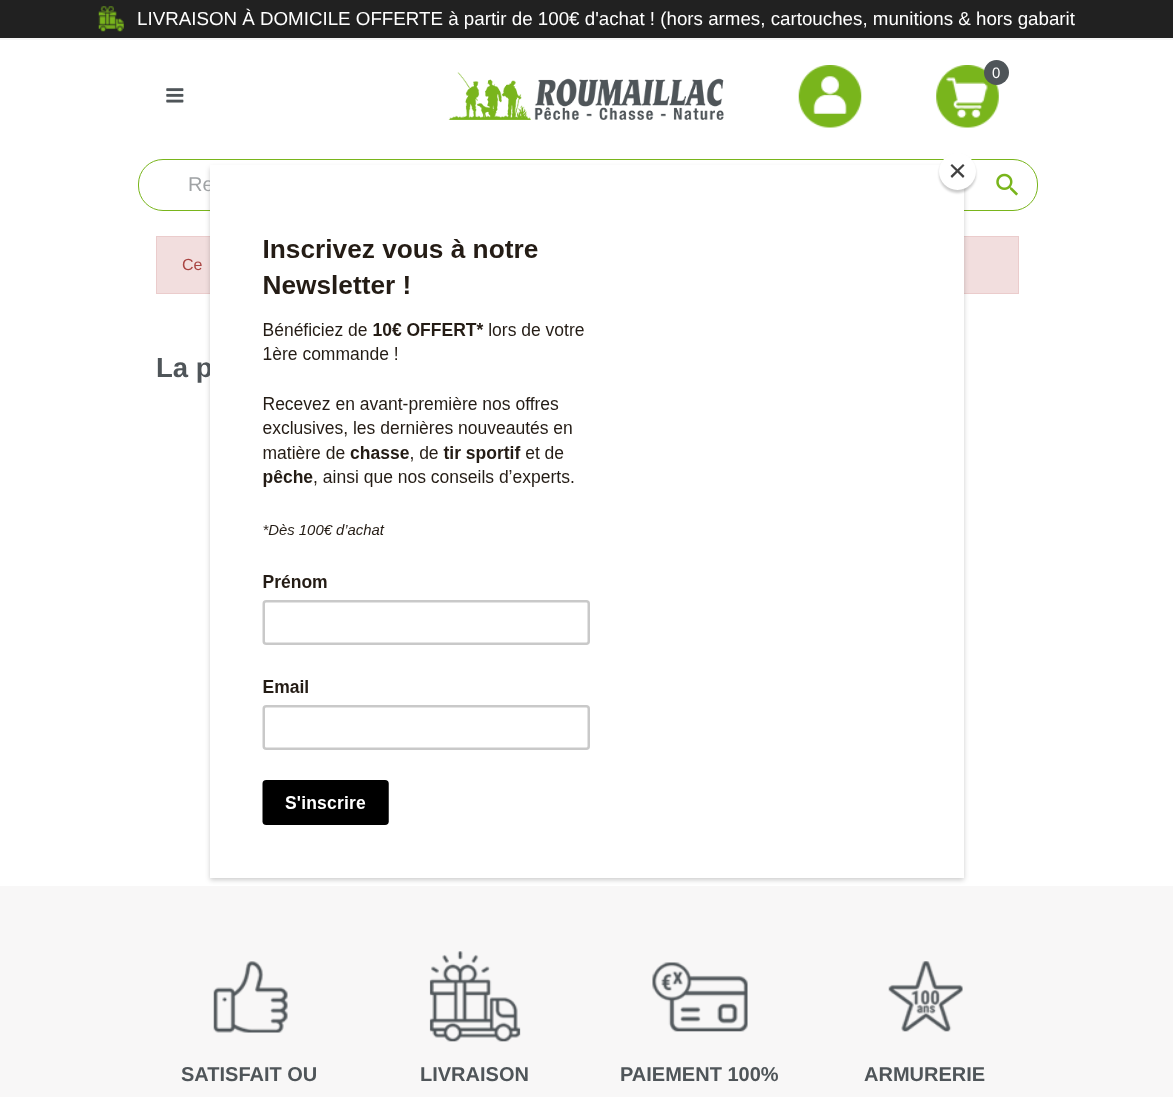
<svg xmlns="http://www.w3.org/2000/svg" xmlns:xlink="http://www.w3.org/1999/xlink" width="1173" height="1097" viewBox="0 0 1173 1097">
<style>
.cls-1{font:18.75px Liberation Sans;fill:#ffffff}
.cls-2{font:15px Liberation Sans;fill:#ffffff}
.cls-3{font:20px Liberation Sans;fill:#a0a3a5}
.cls-4{font:16px Liberation Sans;fill:#a94442}
.cls-5{font:bold 27.5px Liberation Sans;fill:#4f5559}
.cls-6{font:bold 20px Liberation Sans;fill:#4f5559}
</style>
<defs>
<clipPath id="clip1"><path d="M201 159H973V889H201ZM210 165H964V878H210Z" clip-rule="evenodd"/></clipPath>
</defs>
<rect width="100%" height="100%" fill="#ffffff"/>
<rect fill="#212121" x="0" y="0" width="1173" height="38"/>
<image xlink:href="image0.png" x="98" y="6" width="26" height="26"/>
<rect fill="#f6f6f6" x="0" y="38" width="1173" height="2"/>
<image xlink:href="image1.png" x="166" y="88" width="18" height="15"/>
<image xlink:href="image2.png" x="448" y="72" width="276" height="48"/>
<image xlink:href="image3.png" x="798" y="65" width="64" height="63"/>
<image xlink:href="image4.png" x="936" y="65" width="63" height="63"/>
<circle fill="#4f5559" cx="996.5" cy="72.5" r="12.5"/>
<rect fill="none" stroke="#79b51c" x="138.5" y="159.5" width="899" height="51" rx="24.5"/>
<image xlink:href="image5.png" x="996" y="173" width="22" height="23"/>
<rect fill="#f2dede" stroke="#ebcccc" x="156.5" y="236.5" width="862" height="57"/>
<rect fill="#f8f7f7" x="0" y="886" width="1173" height="211"/>
<image xlink:href="image6.png" x="213" y="961" width="75" height="72"/>
<image xlink:href="image7.png" x="429" y="951" width="92" height="91"/>
<image xlink:href="image8.png" x="652" y="962" width="96" height="70"/>
<image xlink:href="image9.png" x="888" y="961" width="75" height="71"/>
<g clip-path="url(#clip1)">
<rect fill="#000000" fill-opacity="0.2" filter="blur(2.5px)" x="210" y="168" width="754" height="712"/>
</g>
<text class="cls-1" x="137" y="25">LIVRAISON À DOMICILE OFFERTE à partir de 100€ d'achat ! (hors armes, cartouches, munitions &amp; hors gabarit</text>
<text class="cls-2" x="992" y="78">0</text>
<text class="cls-3" x="188" y="191">Re</text>
<text class="cls-4" x="182" y="270">Ce</text>
<text class="cls-5" x="156" y="377">La p</text>
<text class="cls-6" x="181" y="1081">SATISFAIT OU</text>
<text class="cls-6" x="420" y="1081">LIVRAISON</text>
<text class="cls-6" x="620" y="1081">PAIEMENT 100%</text>
<text class="cls-6" x="864" y="1081">ARMURERIE</text>
<image xlink:href="image10.png" x="210" y="168" width="754" height="710"/>
<rect fill="#000000" fill-opacity="0.2" filter="blur(1px)" x="939" y="155" width="37" height="38" rx="18.5"/>
<circle fill="#ffffff" cx="957.5" cy="171.5" r="18.5"/>
<path fill="#414141" d="M963 164L964.5 165.5L952 178L950.5 176Z"/>
<path fill="#414141" d="M950.5 165.5L952 164L964.5 176L963 178Z"/>
</svg>
